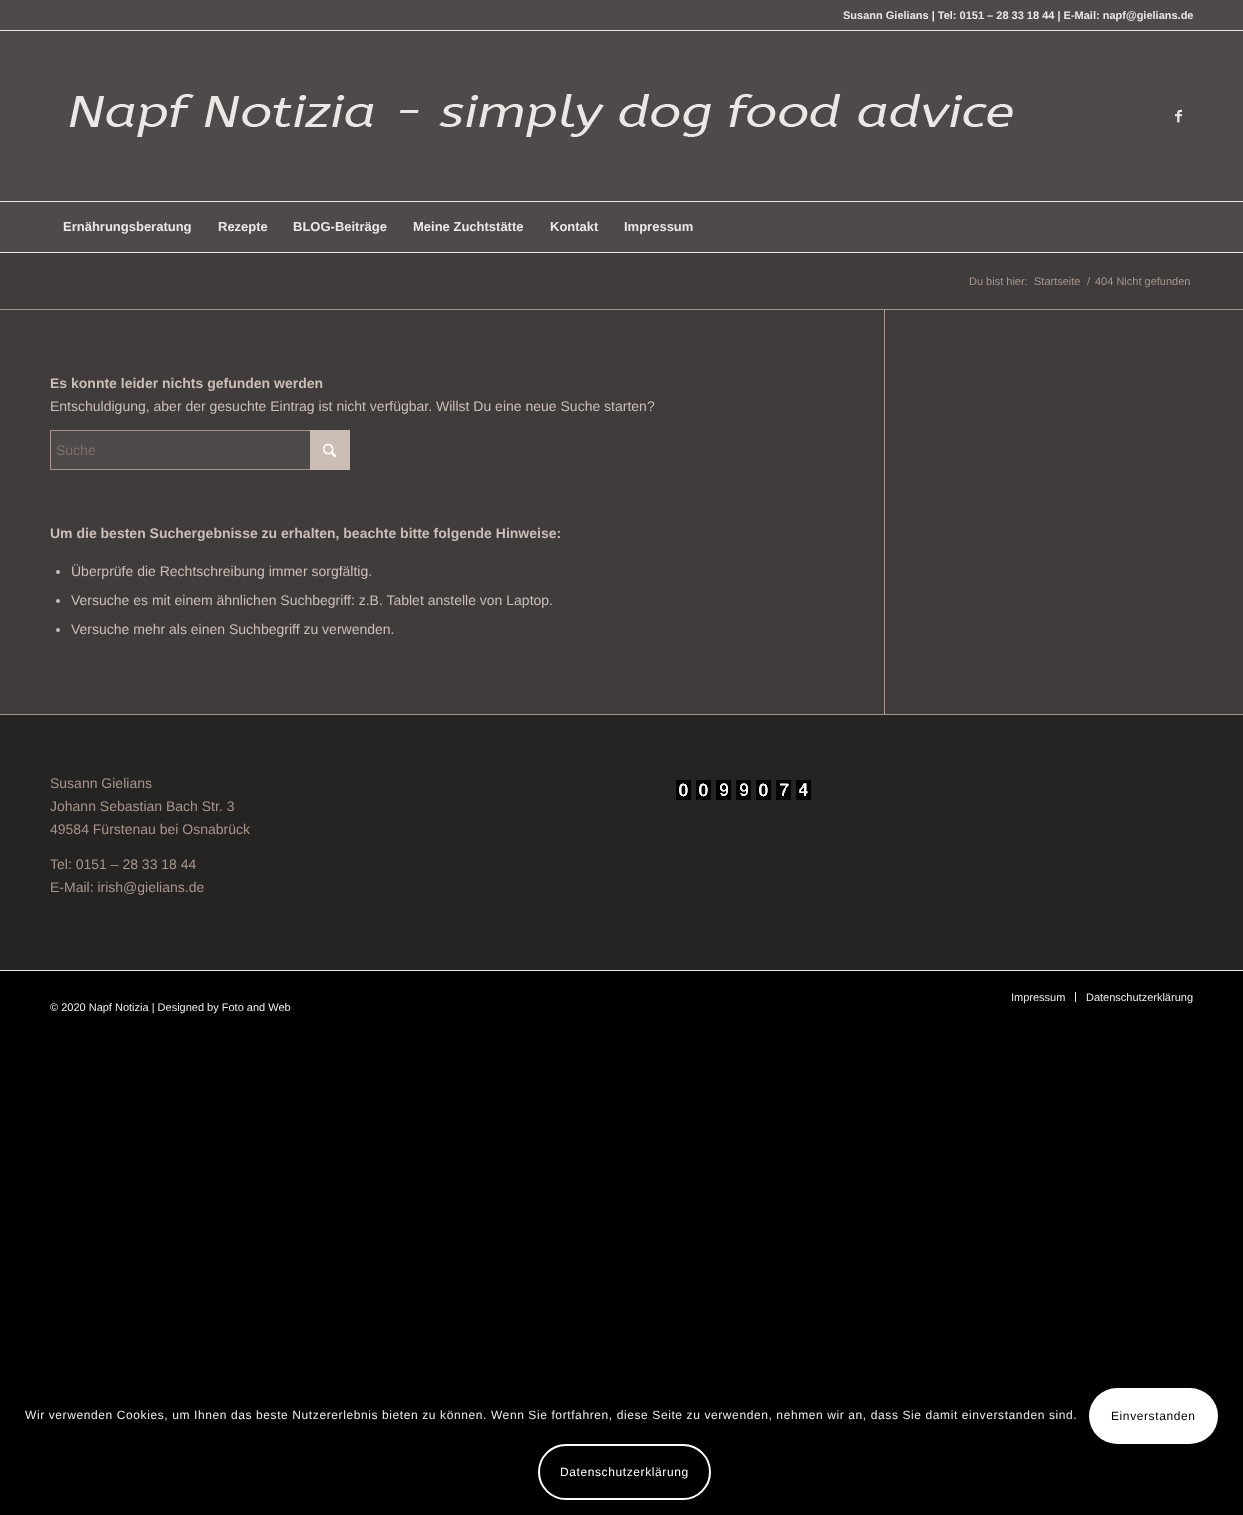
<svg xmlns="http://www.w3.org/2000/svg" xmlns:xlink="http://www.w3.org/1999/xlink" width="1243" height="1515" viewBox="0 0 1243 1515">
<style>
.cls-1{font:bold 11px Liberation Sans;fill:#ece7e5}
.cls-2{font:bold 13px Liberation Sans;fill:#ece7e5}
.cls-3{font:11px Liberation Sans;fill:#a8968c}
.cls-4{font:bold 14px Liberation Sans;fill:#ccbeb7}
.cls-5{font:14px Liberation Sans;fill:#ccbeb7}
.cls-6{font:14px Liberation Sans;fill:#7c706b}
.cls-7{font:14px Liberation Sans;fill:#a8968c}
.cls-8{font:11px Liberation Sans;fill:#ebebeb}
.cls-9{font:12px Liberation Sans;letter-spacing:0.6px;fill:#ebebeb}
.cls-10{font:12px Liberation Sans;letter-spacing:0.6px;fill:#000000}
.cls-11{font:12px Liberation Sans;letter-spacing:0.6px;fill:#ffffff}
</style>
<rect width="100%" height="100%" fill="#000000"/>
<rect fill="#4f4a4a" x="0" y="0" width="1243" height="30"/>
<rect fill="#ece7e5" x="0" y="30" width="1243" height="1"/>
<rect fill="#4f4a4a" x="0" y="31" width="1243" height="221"/>
<rect fill="#ece7e5" x="0" y="252" width="1243" height="1"/>
<image xlink:href="image0.png" x="69" y="94" width="944" height="43"/>
<image xlink:href="image1.png" x="1175" y="109" width="7" height="14"/>
<rect fill="#ece7e5" x="0" y="201" width="1243" height="1"/>
<rect fill="#403c3c" x="0" y="253" width="1243" height="56"/>
<rect fill="#403c3c" x="0" y="310" width="1243" height="404"/>
<rect fill="#a8968c" x="0" y="309" width="1243" height="1"/>
<rect fill="#a8968c" x="884" y="310" width="1" height="404"/>
<rect fill="#4f4a4a" x="51" y="431" width="259" height="38"/>
<rect fill="none" stroke="#a8968c" x="50.5" y="430.5" width="299" height="39"/>
<rect fill="#ccbeb7" x="310" y="430" width="40" height="40"/>
<image xlink:href="image2.png" x="322" y="443" width="15" height="15"/>
<circle fill="#ccbeb7" cx="58" cy="572" r="2"/>
<circle fill="#ccbeb7" cx="58" cy="601" r="2"/>
<circle fill="#ccbeb7" cx="58" cy="630" r="2"/>
<rect fill="#262323" x="0" y="715" width="1243" height="255"/>
<rect fill="#a8968c" x="0" y="714" width="1243" height="1"/>
<image xlink:href="image3.png" x="676" y="780" width="15" height="20"/>
<image xlink:href="image3.png" x="696" y="780" width="15" height="20"/>
<image xlink:href="image4.png" x="716" y="780" width="15" height="20"/>
<image xlink:href="image4.png" x="736" y="780" width="15" height="20"/>
<image xlink:href="image3.png" x="756" y="780" width="15" height="20"/>
<image xlink:href="image5.png" x="776" y="780" width="15" height="20"/>
<image xlink:href="image6.png" x="796" y="780" width="15" height="20"/>
<rect fill="#ebebeb" x="0" y="970" width="1243" height="1"/>
<rect fill="#ebebeb" x="1075" y="992" width="1" height="10"/>
<rect fill="#ffffff" x="1089" y="1388" width="129" height="56" rx="28"/>
<rect fill="none" stroke="#ffffff" stroke-width="2" x="539" y="1445" width="171" height="54" rx="27"/>
<text class="cls-1" x="843" y="19">Susann Gielians | Tel: 0151 – 28 33 18 44 | E-Mail: napf@gielians.de</text>
<text class="cls-2" x="63" y="231">Ernährungsberatung</text>
<text class="cls-2" x="218" y="231">Rezepte</text>
<text class="cls-2" x="293" y="231">BLOG-Beiträge</text>
<text class="cls-2" x="413" y="231">Meine Zuchtstätte</text>
<text class="cls-2" x="550" y="231">Kontakt</text>
<text class="cls-2" x="624" y="231">Impressum</text>
<text class="cls-3" x="969" y="285">Du bist hier:</text>
<text class="cls-3" x="1034" y="285">Startseite</text>
<text class="cls-3" x="1087" y="285">/</text>
<text class="cls-3" x="1095" y="285">404 Nicht gefunden</text>
<text class="cls-4" x="50" y="388">Es konnte leider nichts gefunden werden</text>
<text class="cls-5" x="50" y="411">Entschuldigung, aber der gesuchte Eintrag ist nicht verfügbar. Willst Du eine neue Suche starten?</text>
<text class="cls-6" x="56" y="455">Suche</text>
<text class="cls-4" x="50" y="538">Um die besten Suchergebnisse zu erhalten, beachte bitte folgende Hinweise:</text>
<text class="cls-5" x="71" y="576">Überprüfe die Rechtschreibung immer sorgfältig.</text>
<text class="cls-5" x="71" y="605">Versuche es mit einem ähnlichen Suchbegriff: z.B. Tablet anstelle von Laptop.</text>
<text class="cls-5" x="71" y="634">Versuche mehr als einen Suchbegriff zu verwenden.</text>
<text class="cls-7"><tspan x="50" y="788">Susann Gielians</tspan><tspan x="50" y="811">Johann Sebastian Bach Str. 3</tspan><tspan x="50" y="834">49584 Fürstenau bei Osnabrück</tspan></text>
<text class="cls-7"><tspan x="50" y="869">Tel: 0151 – 28 33 18 44</tspan><tspan x="50" y="892">E-Mail: irish@gielians.de</tspan></text>
<text class="cls-8" x="1011" y="1001">Impressum</text>
<text class="cls-8" x="1086" y="1001">Datenschutzerklärung</text>
<text class="cls-8" x="50" y="1011">© 2020 Napf Notizia | Designed by Foto and Web</text>
<text class="cls-9" x="25" y="1419">Wir verwenden Cookies, um Ihnen das beste Nutzererlebnis bieten zu können. Wenn Sie fortfahren, diese Seite zu verwenden, nehmen wir an, dass Sie damit einverstanden sind.</text>
<text class="cls-10" x="1111" y="1420">Einverstanden</text>
<text class="cls-11" x="560" y="1476">Datenschutzerklärung</text>
</svg>
